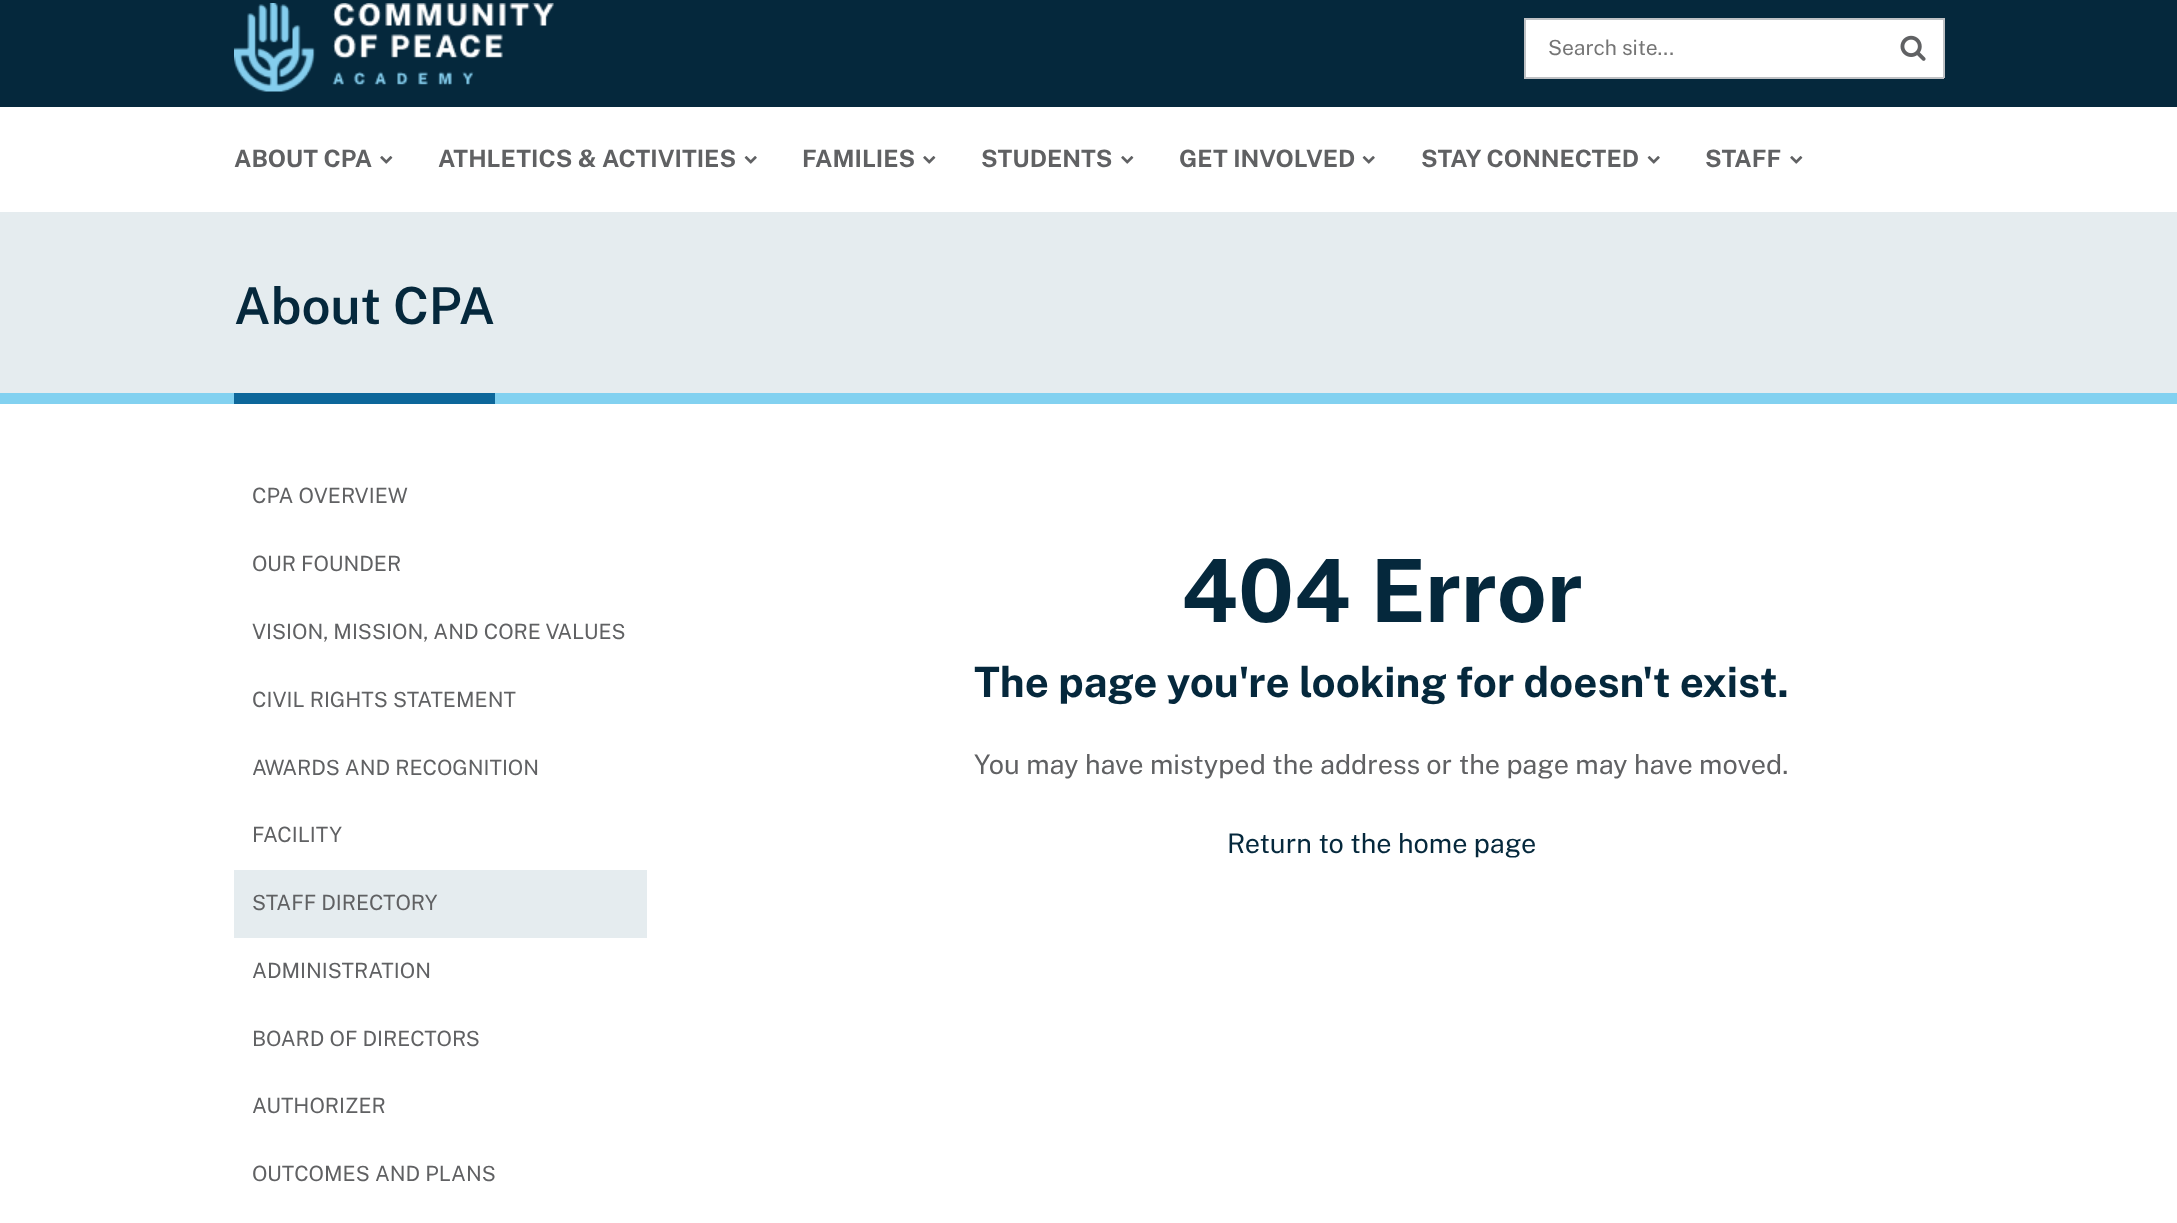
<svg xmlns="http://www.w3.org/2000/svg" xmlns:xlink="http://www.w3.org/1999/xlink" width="2177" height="1223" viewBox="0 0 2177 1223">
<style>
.cls-1{font:21px Public Sans;fill:#757575}
.cls-2{font:bold 24px Public Sans;fill:#606163}
.cls-3{font:600 51px Public Sans;fill:#05283c}
.cls-4{font:21px Public Sans;fill:#606163}
.cls-5{font:bold 87px Public Sans;fill:#05283c}
.cls-6{font:bold 42px Public Sans;fill:#05283c}
.cls-7{font:27px Public Sans;fill:#606163}
.cls-8{font:27px Public Sans;fill:#05283c}
</style>
<rect width="100%" height="100%" fill="#ffffff"/>
<rect fill="#05283c" x="0" y="0" width="2177" height="107"/>
<image xlink:href="image0.png" x="234" y="3" width="320" height="89"/>
<rect fill="#ffffff" x="1526" y="20" width="417" height="57"/>
<rect fill="#bfc1c4" x="1524" y="18" width="420" height="2"/>
<rect fill="#bfc1c4" x="1524" y="77" width="420" height="2"/>
<rect fill="#bfc1c4" x="1524" y="18" width="2" height="60"/>
<rect fill="#bfc1c4" x="1943" y="18" width="2" height="60"/>
<image xlink:href="image1.png" x="1900" y="35" width="26" height="26"/>
<image xlink:href="image2.png" x="380" y="156" width="13" height="8"/>
<image xlink:href="image3.png" x="744" y="156" width="13" height="8"/>
<image xlink:href="image2.png" x="923" y="156" width="13" height="8"/>
<image xlink:href="image2.png" x="1121" y="156" width="13" height="8"/>
<image xlink:href="image3.png" x="1362" y="156" width="13" height="8"/>
<image xlink:href="image3.png" x="1647" y="156" width="13" height="8"/>
<image xlink:href="image2.png" x="1790" y="156" width="13" height="8"/>
<rect fill="#e5ecef" x="0" y="212" width="2177" height="181"/>
<rect fill="#82d1f0" x="0" y="393" width="2177" height="11"/>
<rect fill="#0d679a" x="234" y="393" width="261" height="11"/>
<rect fill="#e5ecef" x="234" y="870" width="413" height="68"/>
<text class="cls-1" x="1548" y="55">Search site...</text>
<text class="cls-2" x="234" y="167">ABOUT CPA</text>
<text class="cls-2" x="438" y="167">ATHLETICS &amp; ACTIVITIES</text>
<text class="cls-2" x="802" y="167">FAMILIES</text>
<text class="cls-2" x="981" y="167">STUDENTS</text>
<text class="cls-2" x="1179" y="167">GET INVOLVED</text>
<text class="cls-2" x="1421" y="167">STAY CONNECTED</text>
<text class="cls-2" x="1705" y="167">STAFF</text>
<text class="cls-3" x="234" y="324">About CPA</text>
<text class="cls-4" x="252" y="503">CPA OVERVIEW</text>
<text class="cls-4" x="252" y="571">OUR FOUNDER</text>
<text class="cls-4" x="252" y="639">VISION, MISSION, AND CORE VALUES</text>
<text class="cls-4" x="252" y="707">CIVIL RIGHTS STATEMENT</text>
<text class="cls-4" x="252" y="775">AWARDS AND RECOGNITION</text>
<text class="cls-4" x="252" y="842">FACILITY</text>
<text class="cls-4" x="252" y="910">STAFF DIRECTORY</text>
<text class="cls-4" x="252" y="978">ADMINISTRATION</text>
<text class="cls-4" x="252" y="1046">BOARD OF DIRECTORS</text>
<text class="cls-4" x="252" y="1113">AUTHORIZER</text>
<text class="cls-4" x="252" y="1181">OUTCOMES AND PLANS</text>
<text class="cls-5" x="1181" y="622">404 Error</text>
<text class="cls-6" x="974" y="697">The page you're looking for doesn't exist.</text>
<text class="cls-7" x="974" y="774">You may have mistyped the address or the page may have moved.</text>
<text class="cls-8" x="1227" y="853">Return to the home page</text>
</svg>
